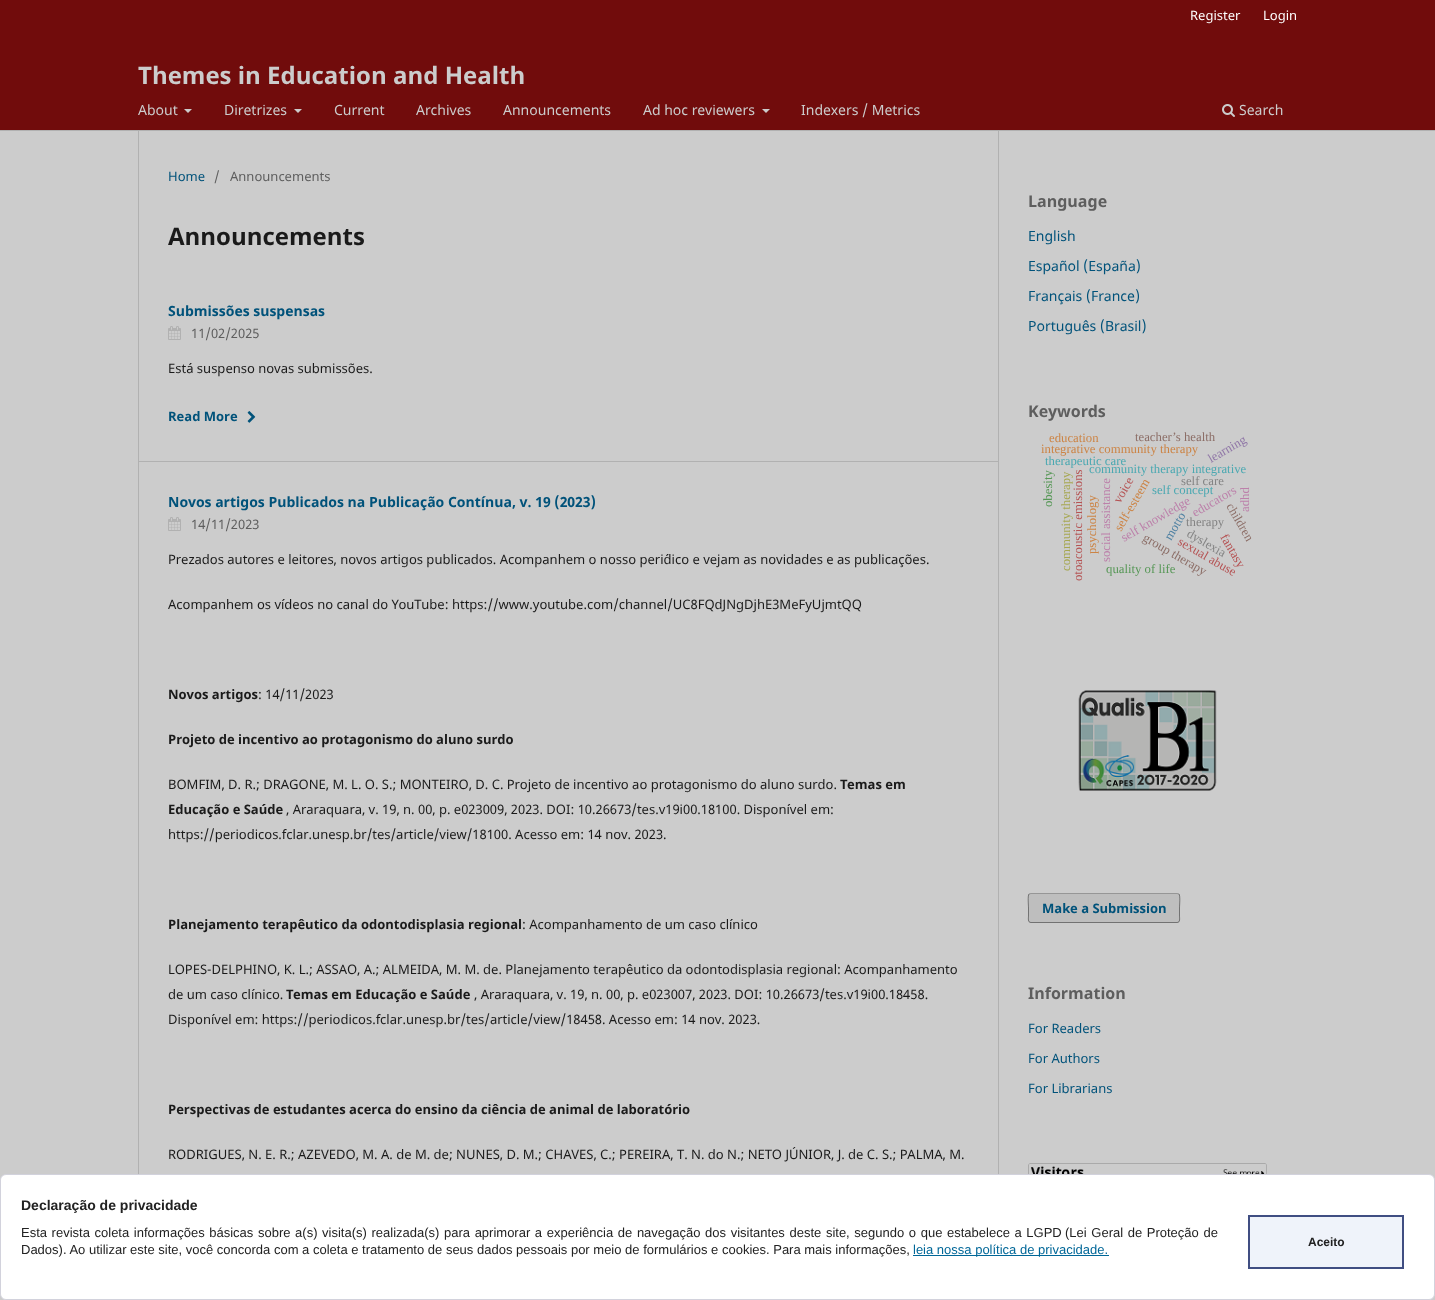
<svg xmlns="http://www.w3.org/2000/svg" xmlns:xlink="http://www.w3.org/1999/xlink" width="1435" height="1300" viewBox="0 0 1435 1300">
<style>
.cls-1{font:13.02px Noto Sans;fill:#ffffff}
.cls-2{font:14px Noto Sans;fill:#cccccc}
.cls-3{font:bold 24px Noto Sans;fill:#cccccc}
.cls-4{font:13.02px Noto Sans;fill:#00527a}
.cls-5{font:13.02px Noto Sans;fill:#5e5e5e}
.cls-6{font:bold 24px Noto Sans;fill:#1a1a1a}
.cls-7{font:bold 14px Noto Sans;fill:#00527a}
.cls-8{font:13.02px Noto Sans;fill:#1a1a1a}
.cls-9{font:bold 13.02px Noto Sans;fill:#00527a}
.cls-10{font:bold 13.02px Noto Sans;fill:#1a1a1a}
.cls-11{font:bold 16px Noto Sans;fill:#5e5e5e}
.cls-12{font:14px Noto Sans;fill:#00527a}
.cls-13{font:12.75px Liberation Serif;fill:#cc8445}
.cls-14{font:12.75px Liberation Serif;fill:#8c6e67}
.cls-15{font:12.75px Liberation Serif;fill:#9077a7}
.cls-16{font:12.75px Liberation Serif;fill:#4aa8b1}
.cls-17{font:12.75px Liberation Serif;fill:#569756}
.cls-18{font:12.75px Liberation Serif;fill:#a6a750}
.cls-19{font:12.75px Liberation Serif;fill:#b55354}
.cls-20{font:12.75px Liberation Serif;fill:#bc80aa}
.cls-21{font:12.75px Liberation Serif;fill:#848484}
.cls-22{font:12.75px Liberation Serif;fill:#4e80a2}
.cls-23{font:bold 14px Liberation Sans;fill:#222222}
.cls-24{font:13px Liberation Sans;fill:#222222}
.cls-25{font:13px Liberation Sans;fill:#006798}
.cls-26{font:bold 12px Liberation Sans;fill:#222222}
</style>
<rect width="100%" height="100%" fill="#cccccc"/>
<rect fill="#710c0c" x="0" y="0" width="1435" height="130"/>
<rect fill="#b1b1b1" x="0" y="130" width="1435" height="1"/>
<path fill="#cccccc" d="M184 109H192L188 113Z"/>
<path fill="#cccccc" d="M294 109H302L298 113Z"/>
<path fill="#cccccc" d="M762 109H770L766 113Z"/>
<image xlink:href="image0.png" x="1222" y="104" width="13" height="13"/>
<rect fill="#b1b1b1" x="138" y="461" width="860" height="1"/>
<rect fill="#b1b1b1" x="138" y="131" width="1" height="1043"/>
<image xlink:href="image1.png" x="168" y="326" width="13" height="14"/>
<image xlink:href="image2.png" x="247" y="411" width="9" height="12"/>
<image xlink:href="image1.png" x="168" y="517" width="13" height="14"/>
<rect fill="#b1b1b1" x="998" y="131" width="1" height="1043"/>
<image xlink:href="image3.png" x="1078" y="690" width="139" height="101"/>
<rect fill="#bebebe" x="1028" y="893" width="152" height="30" rx="3"/>
<path fill="none" stroke="#969696" d="M1029 894L1031 893.5H1177L1179 894"/>
<path fill="none" stroke="#000000" stroke-opacity="0.4" d="M1179 894C1180.5 896 1179.5 905.5 1179.5 908V916C1179.5 918 1180.5 922.5 1177 922.5H1031C1027.5 922.5 1028.5 918 1028.5 916V908C1028.5 905.5 1027.5 896 1029 894"/>
<image xlink:href="image4.png" x="1028" y="1163" width="239" height="11"/>
<rect fill="#ffffff" stroke="#d2d2dc" x="0.5" y="1174.5" width="1434" height="125" rx="5.5"/>
<rect fill="#006798" x="913" y="1255" width="196" height="1"/>
<rect fill="#eff3fa" stroke="#404e82" stroke-width="2" x="1249" y="1216" width="154" height="52"/>
<text class="cls-1" x="1190" y="20">Register</text>
<text class="cls-1" x="1263" y="20">Login</text>
<text class="cls-2" x="138" y="115">About</text>
<text class="cls-2" x="224" y="115">Diretrizes</text>
<text class="cls-2" x="334" y="115">Current</text>
<text class="cls-2" x="416" y="115">Archives</text>
<text class="cls-2" x="503" y="115">Announcements</text>
<text class="cls-2" x="643" y="115">Ad hoc reviewers</text>
<text class="cls-2" x="801" y="115">Indexers / Metrics</text>
<text class="cls-2" x="1239" y="115">Search</text>
<text class="cls-3" x="138" y="84">Themes in Education and Health</text>
<text class="cls-4" x="168" y="181">Home</text>
<text class="cls-5" x="214" y="181">/</text>
<text class="cls-5" x="230" y="181">Announcements</text>
<text class="cls-6" x="168" y="245">Announcements</text>
<text class="cls-7" x="168" y="316">Submissões suspensas</text>
<text class="cls-5" x="191" y="338">11/02/2025</text>
<text class="cls-8" x="168" y="373">Está suspenso novas submissões.</text>
<text class="cls-9" x="168" y="421">Read More</text>
<text class="cls-7" x="168" y="507">Novos artigos Publicados na Publicação Contínua, v. 19 (2023)</text>
<text class="cls-5" x="191" y="529">14/11/2023</text>
<text class="cls-8" x="168" y="564">Prezados autores e leitores, novos artigos publicados. Acompanhem o nosso peri´dico e vejam as novidades e as publicações.</text>
<text class="cls-8" x="168" y="609">Acompanhem os vídeos no canal do YouTube: https://www.youtube.com/channel/UC8FQdJNgDjhE3MeFyUjmtQQ</text>
<text class="cls-10" x="168" y="699">Novos artigos</text>
<text class="cls-8" x="258" y="699">: 14/11/2023</text>
<text class="cls-10" x="168" y="744">Projeto de incentivo ao protagonismo do aluno surdo</text>
<text class="cls-8" x="168" y="789">BOMFIM, D. R.; DRAGONE, M. L. O. S.; MONTEIRO, D. C. Projeto de incentivo ao protagonismo do aluno surdo.</text>
<text class="cls-10" x="840" y="789">Temas em</text>
<text class="cls-10" x="168" y="814">Educação e Saúde</text>
<text class="cls-8" x="286" y="814">, Araraquara, v. 19, n. 00, p. e023009, 2023. DOI: 10.26673/tes.v19i00.18100. Disponível em:</text>
<text class="cls-8" x="168" y="839">https://periodicos.fclar.unesp.br/tes/article/view/18100. Acesso em: 14 nov. 2023.</text>
<text class="cls-10" x="168" y="929">Planejamento terapêutico da odontodisplasia regional</text>
<text class="cls-8" x="522" y="929">: Acompanhamento de um caso clínico</text>
<text class="cls-8"><tspan x="168" y="974">LOPES-DELPHINO, K. L.; ASSAO, A.; ALMEIDA, M. M. de. Planejamento terapêutico da odontodisplasia regional: Acompanhamento</tspan><tspan x="168" y="999">de um caso clínico.</tspan></text>
<text class="cls-10" x="286" y="999">Temas em Educação e Saúde</text>
<text class="cls-8" x="474" y="999">, Araraquara, v. 19, n. 00, p. e023007, 2023. DOI: 10.26673/tes.v19i00.18458.</text>
<text class="cls-8" x="168" y="1024">Disponível em: https://periodicos.fclar.unesp.br/tes/article/view/18458. Acesso em: 14 nov. 2023.</text>
<text class="cls-10" x="168" y="1114">Perspectivas de estudantes acerca do ensino da ciência de animal de laboratório</text>
<text class="cls-8" x="168" y="1159">RODRIGUES, N. E. R.; AZEVEDO, M. A. de M. de; NUNES, D. M.; CHAVES, C.; PEREIRA, T. N. do N.; NETO JÚNIOR, J. de C. S.; PALMA, M.</text>
<text class="cls-11" x="1028" y="207">Language</text>
<text class="cls-12" x="1028" y="241">English</text>
<text class="cls-12" x="1028" y="271">Español (España)</text>
<text class="cls-12" x="1028" y="301">Français (France)</text>
<text class="cls-12" x="1028" y="331">Português (Brasil)</text>
<text class="cls-11" x="1028" y="417">Keywords</text>
<text class="cls-13" x="1049" y="442">education</text>
<text class="cls-14" x="1135" y="441">teacher’s health</text>
<text class="cls-15" x="1211" y="463" transform="rotate(-30 1211 463)">learning</text>
<text class="cls-13" x="1041" y="453">integrative community therapy</text>
<text class="cls-16" x="1045" y="465">therapeutic care</text>
<text class="cls-17" x="1052" y="507" transform="rotate(-90 1052 507)">obesity</text>
<text class="cls-18" x="1070" y="571" transform="rotate(-90 1070 571)">community therapy</text>
<text class="cls-19" x="1082" y="581" transform="rotate(-90 1082 581)">otoacoustic emissions</text>
<text class="cls-16" x="1089" y="473">community therapy integrative</text>
<text class="cls-20" x="1110" y="562" transform="rotate(-90 1110 562)">social assistance</text>
<text class="cls-21" x="1181" y="485">self care</text>
<text class="cls-13" x="1096" y="554" transform="rotate(-90 1096 554)">psychology</text>
<text class="cls-13" x="1121" y="532" transform="rotate(-60 1121 532)">self-esteem</text>
<text class="cls-19" x="1120" y="504" transform="rotate(-60 1120 504)">voice</text>
<text class="cls-16" x="1152" y="494">self concept</text>
<text class="cls-20" x="1195" y="517" transform="rotate(-30 1195 517)">educators</text>
<text class="cls-20" x="1249" y="512" transform="rotate(-90 1249 512)">adhd</text>
<text class="cls-20" x="1124" y="542" transform="rotate(-30 1124 542)">self knowledge</text>
<text class="cls-14" x="1226" y="506" transform="rotate(60 1226 506)">children</text>
<text class="cls-22" x="1171" y="541" transform="rotate(-60 1171 541)">motto</text>
<text class="cls-21" x="1186" y="526">therapy</text>
<text class="cls-14" x="1142" y="540" transform="rotate(30 1142 540)">group therapy</text>
<text class="cls-17" x="1106" y="573">quality of life</text>
<text class="cls-19" x="1177" y="544" transform="rotate(30 1177 544)">sexual abuse</text>
<text class="cls-19" x="1220" y="537" transform="rotate(60 1220 537)">fantasy</text>
<text class="cls-21" x="1186" y="536" transform="rotate(30 1186 536)">dyslexia</text>
<text class="cls-9" x="1042" y="913">Make a Submission</text>
<text class="cls-11" x="1028" y="999">Information</text>
<text class="cls-4" x="1028" y="1033">For Readers</text>
<text class="cls-4" x="1028" y="1063">For Authors</text>
<text class="cls-4" x="1028" y="1093">For Librarians</text>
<text class="cls-23" x="21" y="1210">Declaração de privacidade</text>
<text class="cls-24" x="21" y="1237" word-spacing="1">Esta revista coleta informações básicas sobre a(s) visita(s) realizada(s)</text>
<text class="cls-24" x="444" y="1237" word-spacing="1">para aprimorar a experiência de navegação dos visitantes deste site, segundo o que estabelece a LGPD</text>
<text class="cls-24" x="1065" y="1237" word-spacing="1">(Lei Geral de Proteção de</text>
<text class="cls-24" x="21" y="1254">Dados). Ao utilizar este site, você concorda com a coleta e tratamento de seus dados pessoais por meio de formulários e cookies. Para mais informações,</text>
<text class="cls-25" x="913" y="1254">leia nossa política de privacidade.</text>
<text class="cls-26" x="1308" y="1246">Aceito</text>
</svg>
